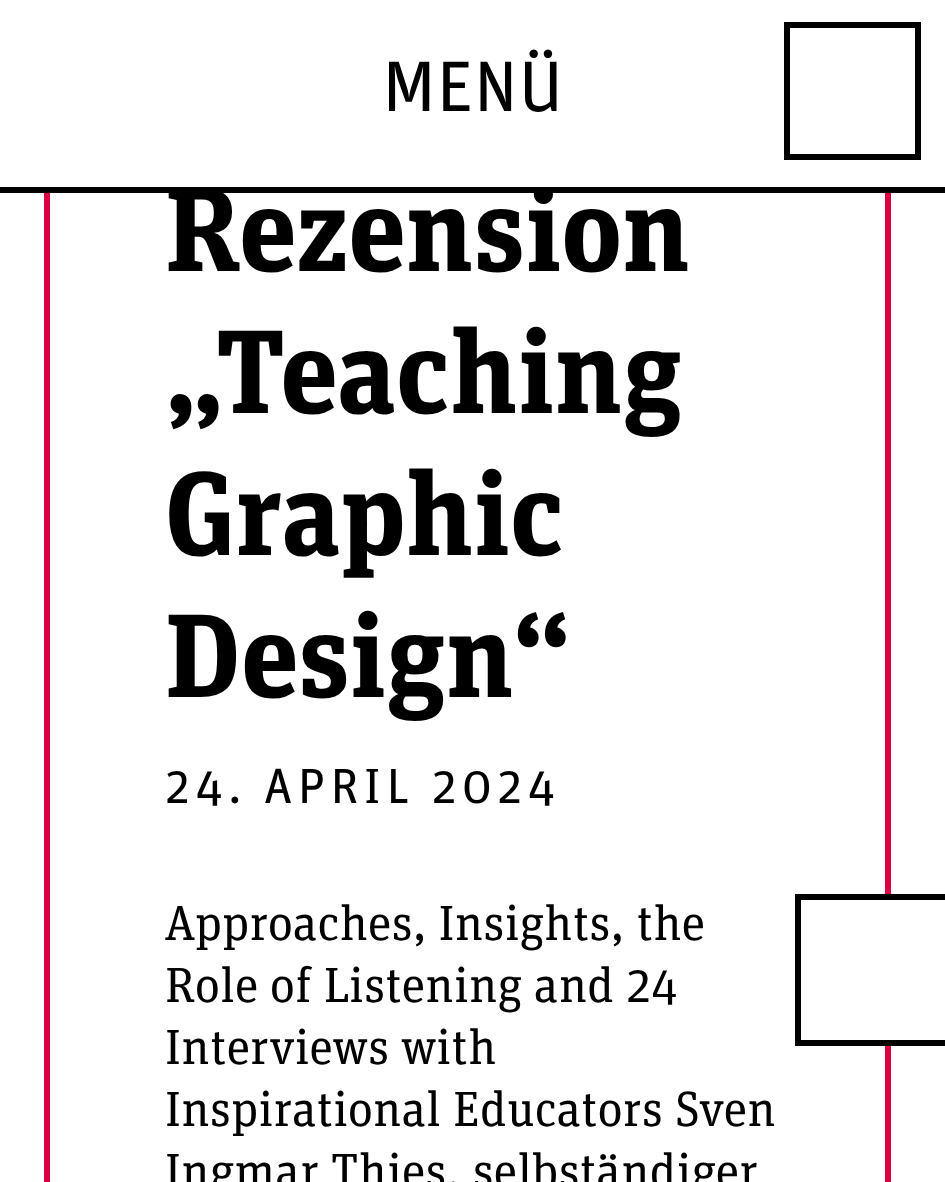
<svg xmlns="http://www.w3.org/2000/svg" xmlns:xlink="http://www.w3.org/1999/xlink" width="945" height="1182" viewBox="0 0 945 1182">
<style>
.cls-1{font:bold 118.25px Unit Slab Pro;fill:#000000}
.cls-2{font:71.5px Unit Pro;fill:#000000}
.cls-3{font:49.5px Unit Pro;letter-spacing:5px;fill:#000000}
.cls-4{font:49.5px Unit Slab Pro;fill:#000000}
</style>
<rect width="100%" height="100%" fill="#ffffff"/>
<rect fill="none" stroke="#da0041" stroke-width="6" x="47" y="-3" width="841" height="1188"/>
<rect fill="#000000" x="0" y="187" width="945" height="6"/>
<rect fill="#ffffff" x="885" y="900" width="6" height="140"/>
<rect fill="#000000" x="795" y="894" width="150" height="6"/>
<rect fill="#000000" x="795" y="1040" width="150" height="6"/>
<rect fill="#000000" x="795" y="894" width="6" height="151"/>
<text class="cls-1" x="165" y="271">Rezension</text>
<rect fill="#ffffff" x="44" y="0" width="847" height="187"/>
<rect fill="none" stroke="#000000" stroke-width="6" x="787" y="25" width="131" height="132"/>
<text class="cls-2" x="382" y="111">MENÜ</text>
<text class="cls-1"><tspan x="165" y="413">„Teaching</tspan><tspan x="165" y="555">Graphic</tspan><tspan x="165" y="697">Design“</tspan></text>
<text class="cls-3" x="165" y="803">24. APRIL 2024</text>
<text class="cls-4"><tspan x="165" y="940">Approaches, Insights, the</tspan><tspan x="165" y="1002">Role of Listening and 24</tspan><tspan x="165" y="1064">Interviews with</tspan><tspan x="165" y="1126">Inspirational Educators Sven</tspan><tspan x="165" y="1188">Ingmar Thies, selbständiger</tspan></text>
</svg>
